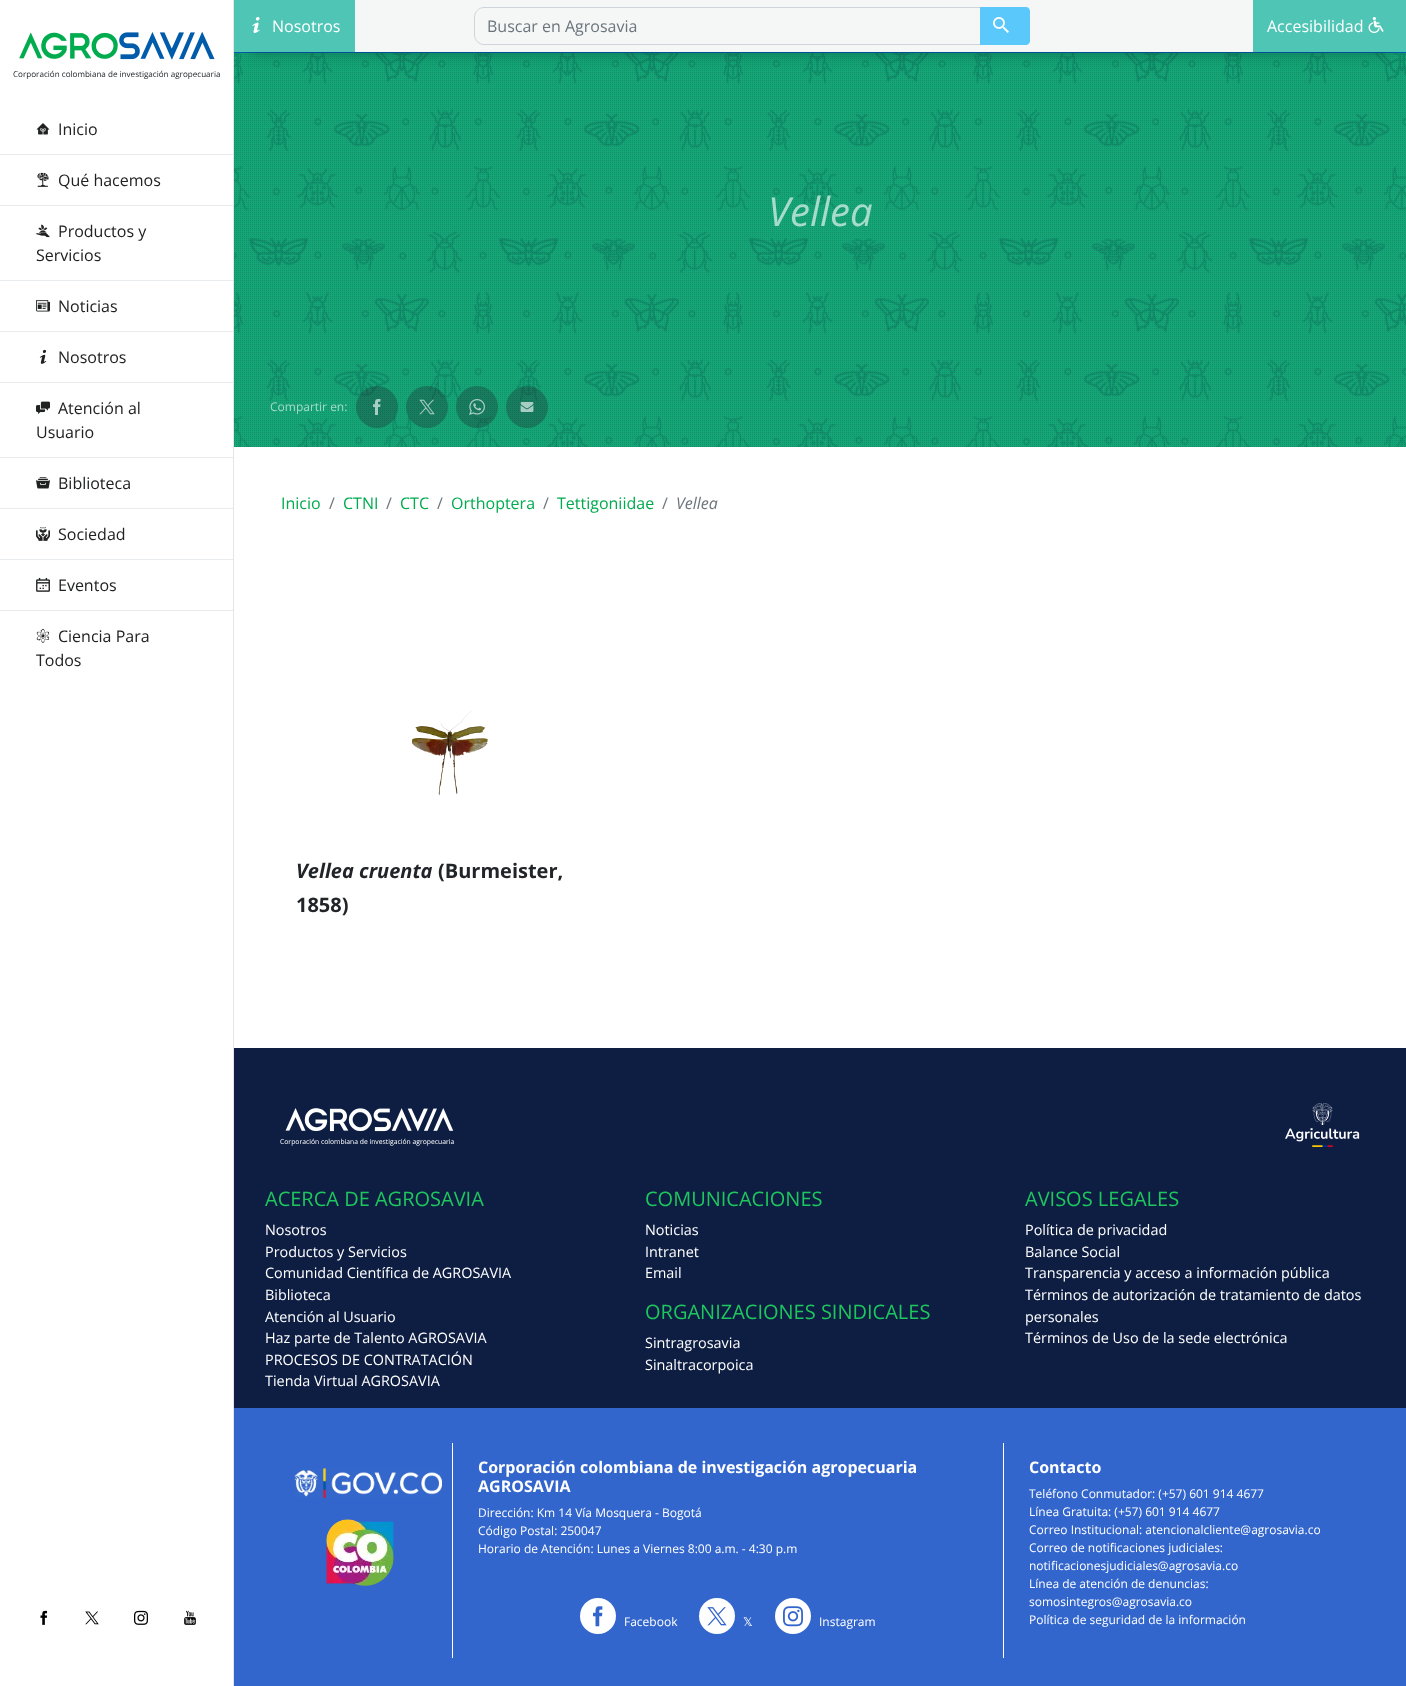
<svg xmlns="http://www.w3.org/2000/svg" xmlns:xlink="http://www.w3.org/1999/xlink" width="1406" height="1686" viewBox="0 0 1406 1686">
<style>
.cls-1{font:8.1px Open Sans;fill:#212529}
.cls-2{font:16px Open Sans;fill:#202121}
.cls-3{font:16px Open Sans;fill:#ffffff}
.cls-4{font:16px Open Sans;fill:#6c757d}
.cls-5{font:italic 40px Open Sans;fill:#a7dbca}
.cls-6{font:12px Open Sans;fill:#a7dbca}
.cls-7{font:16px Open Sans;fill:#00ac4e}
.cls-8{font:italic 16px Open Sans;fill:#6c757d}
.cls-9{font:italic bold 20px Open Sans;fill:#212529}
.cls-10{font:bold 20px Open Sans;fill:#212529}
.cls-11{font:6.8px Open Sans;fill:#ffffff}
.cls-12{font:20px Open Sans;fill:#1ec65e}
.cls-13{font:14.4px Open Sans;fill:#ffffff}
.cls-14{font:bold 16px Open Sans;fill:#ffffff}
.cls-15{font:12px Open Sans;fill:#ffffff}
.cls-16{font:12px DejaVu Sans;fill:#ffffff}
</style>
<rect width="100%" height="100%" fill="#ffffff"/>
<rect fill="#005baa" x="234" y="52" width="1172" height="1"/>
<rect fill="#15a576" x="234" y="53" width="1172" height="394"/>
<image xlink:href="image19.png" x="234" y="53" width="1172" height="394"/>
<image xlink:href="image20.png" x="234" y="54" width="1171" height="393"/>
<rect fill="#000000" fill-opacity="0.3" filter="blur(7.5px)" x="249" y="30" width="1142" height="22"/>
<rect fill="#e5e5e5" x="233" y="0" width="1" height="1686"/>
<image xlink:href="image0.png" x="19" y="32" width="99" height="27"/>
<image xlink:href="image1.png" x="119" y="32" width="96" height="28"/>
<rect fill="#e9ecef" x="0" y="154" width="233" height="1"/>
<image xlink:href="image2.png" x="36" y="123" width="14" height="12"/>
<rect fill="#e9ecef" x="0" y="205" width="233" height="1"/>
<image xlink:href="image3.png" x="37" y="172" width="12" height="15"/>
<rect fill="#e9ecef" x="0" y="280" width="233" height="1"/>
<image xlink:href="image4.png" x="36" y="224" width="14" height="14"/>
<rect fill="#e9ecef" x="0" y="331" width="233" height="1"/>
<image xlink:href="image5.png" x="36" y="300" width="14" height="12"/>
<rect fill="#e9ecef" x="0" y="382" width="233" height="1"/>
<image xlink:href="image6.png" x="39" y="349" width="8" height="15"/>
<rect fill="#e9ecef" x="0" y="457" width="233" height="1"/>
<image xlink:href="image7.png" x="36" y="401" width="14" height="13"/>
<rect fill="#e9ecef" x="0" y="508" width="233" height="1"/>
<image xlink:href="image8.png" x="36" y="477" width="14" height="12"/>
<rect fill="#e9ecef" x="0" y="559" width="233" height="1"/>
<image xlink:href="image9.png" x="36" y="527" width="14" height="14"/>
<rect fill="#e9ecef" x="0" y="610" width="233" height="1"/>
<image xlink:href="image10.png" x="36" y="577" width="14" height="15"/>
<image xlink:href="image11.png" x="36" y="628" width="14" height="15"/>
<image xlink:href="image12.png" x="40" y="1610" width="8" height="15"/>
<image xlink:href="image13.png" x="85" y="1611" width="14" height="14"/>
<image xlink:href="image14.png" x="134" y="1610" width="14" height="15"/>
<image xlink:href="image15.png" x="184" y="1610" width="12" height="15"/>
<rect fill="#f4f7f6" x="355" y="0" width="898" height="52"/>
<rect fill="#4fc5b6" x="234" y="0" width="121" height="52"/>
<image xlink:href="image16.png" x="252" y="17" width="8" height="16"/>
<path fill="none" stroke="#ced4da" d="M484 7.5H980.5V44.5H484C479 44.5 474.5 40 474.5 35V17C474.5 12 479 7.5 484 7.5Z"/>
<path fill="#5ac8fa" d="M980 7H1026C1028 7 1030 9 1030 11V41C1030 43 1028 45 1026 45H980Z"/>
<image xlink:href="image17.png" x="993" y="17" width="16" height="16"/>
<rect fill="#4fc5b6" x="1253" y="0" width="153" height="52"/>
<image xlink:href="image18.png" x="1368" y="17" width="16" height="16"/>
<circle fill="#212529" fill-opacity="0.31" cx="377" cy="407" r="21"/>
<image xlink:href="image21.png" x="373" y="399" width="8" height="16"/>
<circle fill="#212529" fill-opacity="0.31" cx="427" cy="407" r="21"/>
<image xlink:href="image22.png" x="419" y="399" width="16" height="16"/>
<circle fill="#212529" fill-opacity="0.31" cx="477" cy="407" r="21"/>
<image xlink:href="image23.png" x="469" y="399" width="16" height="16"/>
<circle fill="#212529" fill-opacity="0.31" cx="527" cy="407" r="21"/>
<image xlink:href="image24.png" x="520" y="402" width="14" height="10"/>
<image xlink:href="image25.png" x="412" y="711" width="76" height="85"/>
<rect fill="#0e1e43" x="234" y="1048" width="1172" height="360"/>
<image xlink:href="image26.png" x="285" y="1108" width="169" height="24"/>
<image xlink:href="image27.png" x="1285" y="1103" width="75" height="44"/>
<rect fill="#3366cc" x="234" y="1408" width="1172" height="278"/>
<rect fill="#ffffff" x="452" y="1443" width="1" height="215"/>
<image xlink:href="image28.png" x="294" y="1468" width="148" height="30"/>
<image xlink:href="image29.png" x="326" y="1519" width="68" height="67"/>
<rect fill="#ffffff" x="1003" y="1443" width="1" height="215"/>
<circle fill="#ffffff" cx="598" cy="1616" r="18"/>
<image xlink:href="image30.png" x="593" y="1606" width="10" height="21"/>
<circle fill="#ffffff" cx="717" cy="1616" r="18"/>
<image xlink:href="image31.png" x="707" y="1607" width="20" height="19"/>
<circle fill="#ffffff" cx="793" cy="1616" r="18"/>
<image xlink:href="image32.png" x="783" y="1606" width="20" height="21"/>
<text class="cls-1" x="13" y="77">Corporación colombiana de investigación agropecuaria</text>
<text class="cls-2" x="58" y="135">Inicio</text>
<text class="cls-2" x="58" y="186">Qué hacemos</text>
<text class="cls-2" x="58" y="237">Productos y</text>
<text class="cls-2" x="36" y="261">Servicios</text>
<text class="cls-2" x="58" y="312">Noticias</text>
<text class="cls-2" x="58" y="363">Nosotros</text>
<text class="cls-2" x="58" y="414">Atención al</text>
<text class="cls-2" x="36" y="438">Usuario</text>
<text class="cls-2" x="58" y="489">Biblioteca</text>
<text class="cls-2" x="58" y="540">Sociedad</text>
<text class="cls-2" x="58" y="591">Eventos</text>
<text class="cls-2" x="58" y="642">Ciencia Para</text>
<text class="cls-2" x="36" y="666">Todos</text>
<text class="cls-3" x="272" y="32">Nosotros</text>
<text class="cls-4" x="487" y="32">Buscar en Agrosavia</text>
<text class="cls-3" x="1267" y="32">Accesibilidad</text>
<text class="cls-5" x="768" y="226">Vellea</text>
<text class="cls-6" x="270" y="411">Compartir en:</text>
<text class="cls-7" x="281" y="509">Inicio</text>
<text class="cls-4" x="329" y="509">/</text>
<text class="cls-7" x="343" y="509">CTNI</text>
<text class="cls-4" x="386" y="509">/</text>
<text class="cls-7" x="400" y="509">CTC</text>
<text class="cls-4" x="437" y="509">/</text>
<text class="cls-7" x="451" y="509">Orthoptera</text>
<text class="cls-4" x="543" y="509">/</text>
<text class="cls-7" x="557" y="509">Tettigoniidae</text>
<text class="cls-4" x="662" y="509">/</text>
<text class="cls-8" x="676" y="509">Vellea</text>
<text class="cls-9" x="296" y="878">Vellea cruenta</text>
<text class="cls-10" x="438" y="878">(Burmeister,</text>
<text class="cls-10" x="296" y="912">1858)</text>
<text class="cls-11" x="280" y="1144">Corporación colombiana de investigación agropecuaria</text>
<text class="cls-12" x="265" y="1206">ACERCA DE AGROSAVIA</text>
<text class="cls-13"><tspan x="265" y="1235">Nosotros</tspan><tspan x="265" y="1257">Productos y Servicios</tspan><tspan x="265" y="1278">Comunidad Científica de AGROSAVIA</tspan><tspan x="265" y="1300">Biblioteca</tspan><tspan x="265" y="1322">Atención al Usuario</tspan><tspan x="265" y="1343">Haz parte de Talento AGROSAVIA</tspan><tspan x="265" y="1365">PROCESOS DE CONTRATACIÓN</tspan><tspan x="265" y="1386">Tienda Virtual AGROSAVIA</tspan></text>
<text class="cls-12" x="645" y="1206">COMUNICACIONES</text>
<text class="cls-13"><tspan x="645" y="1235">Noticias</tspan><tspan x="645" y="1257">Intranet</tspan><tspan x="645" y="1278">Email</tspan></text>
<text class="cls-12" x="645" y="1319">ORGANIZACIONES SINDICALES</text>
<text class="cls-13"><tspan x="645" y="1348">Sintragrosavia</tspan><tspan x="645" y="1370">Sinaltracorpoica</tspan></text>
<text class="cls-12" x="1025" y="1206">AVISOS LEGALES</text>
<text class="cls-13"><tspan x="1025" y="1235">Política de privacidad</tspan><tspan x="1025" y="1257">Balance Social</tspan><tspan x="1025" y="1278">Transparencia y acceso a información pública</tspan><tspan x="1025" y="1300">Términos de autorización de tratamiento de datos</tspan><tspan x="1025" y="1322">personales</tspan><tspan x="1025" y="1343">Términos de Uso de la sede electrónica</tspan></text>
<text class="cls-14"><tspan x="478" y="1473">Corporación colombiana de investigación agropecuaria</tspan><tspan x="478" y="1492">AGROSAVIA</tspan></text>
<text class="cls-15"><tspan x="478" y="1517">Dirección: Km 14 Vía Mosquera - Bogotá</tspan><tspan x="478" y="1535">Código Postal: 250047</tspan><tspan x="478" y="1553">Horario de Atención: Lunes a Viernes 8:00 a.m. - 4:30 p.m</tspan></text>
<text class="cls-15" x="624" y="1626">Facebook</text>
<text class="cls-16" x="743" y="1626">𝕏</text>
<text class="cls-15" x="819" y="1626">Instagram</text>
<text class="cls-14" x="1029" y="1473">Contacto</text>
<text class="cls-15"><tspan x="1029" y="1498">Teléfono Conmutador: (+57) 601 914 4677</tspan><tspan x="1029" y="1516">Línea Gratuita: (+57) 601 914 4677</tspan><tspan x="1029" y="1534">Correo Institucional: atencionalcliente@agrosavia.co</tspan><tspan x="1029" y="1552">Correo de notificaciones judiciales:</tspan><tspan x="1029" y="1570">notificacionesjudiciales@agrosavia.co</tspan><tspan x="1029" y="1588">Línea de atención de denuncias:</tspan><tspan x="1029" y="1606">somosintegros@agrosavia.co</tspan><tspan x="1029" y="1624">Política de seguridad de la información</tspan></text>
</svg>
